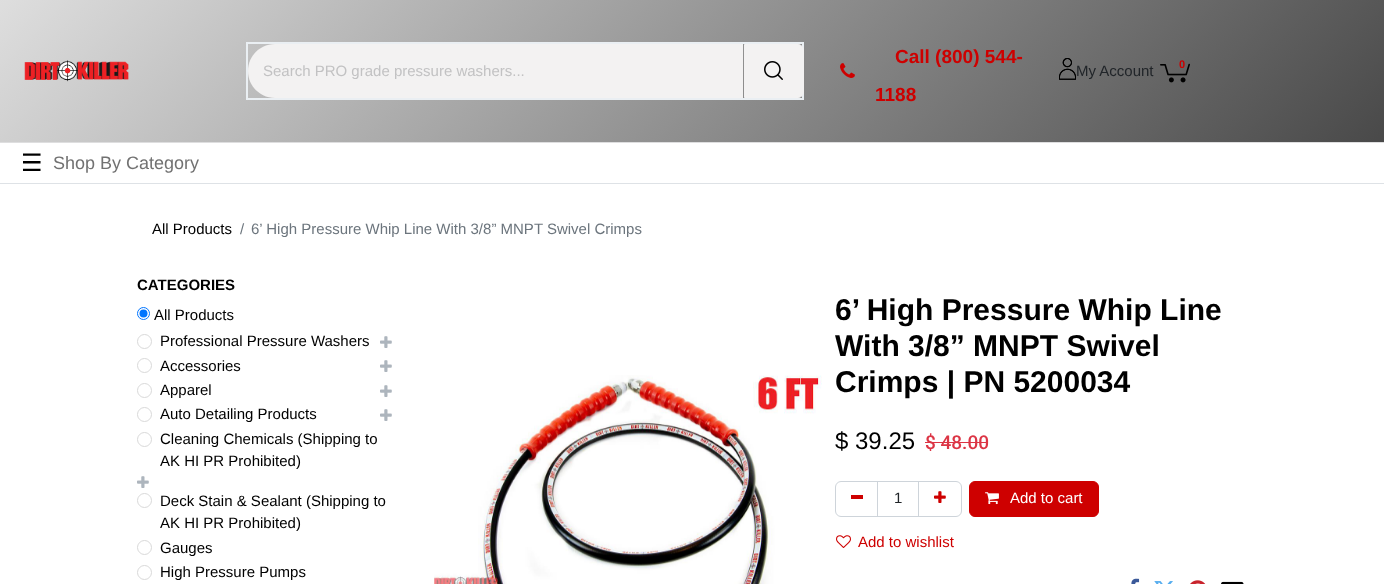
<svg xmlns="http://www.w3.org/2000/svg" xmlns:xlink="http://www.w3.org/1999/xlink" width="1384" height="584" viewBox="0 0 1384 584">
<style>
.cls-1{font:15px Liberation Sans;fill:#c2c2c3}
.cls-2{font:bold 19px Liberation Sans;fill:#ce0000}
.cls-3{font:15px Liberation Sans;fill:#212529}
.cls-4{font:bold 11px Liberation Sans;fill:#ce0000}
.cls-5{font:24px DejaVu Sans;fill:#000000}
.cls-6{font:18px Liberation Sans;fill:#727272}
.cls-7{font:15px Liberation Sans;fill:#000000}
.cls-8{font:15px Liberation Sans;fill:#6c757d}
.cls-9{font:bold 15px Liberation Sans;fill:#000000}
.cls-10{font:bold 30px Liberation Sans;fill:#000000}
.cls-11{font:24px Liberation Sans;fill:#000000}
.cls-12{font:500 19px Roboto;fill:#dc3545}
.cls-13{font:15px Liberation Sans;fill:#ffffff}
.cls-14{font:15px Liberation Sans;fill:#ce0000}
</style>
<defs>
<linearGradient id="g1" gradientUnits="userSpaceOnUse" x1="300" y1="-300" x2="1084" y2="484"><stop offset="0" stop-color="#dedede"/><stop offset="1" stop-color="#454545"/></linearGradient>
</defs>
<rect width="100%" height="100%" fill="#ffffff"/>
<rect fill="url(#g1)" x="0" y="0" width="1384" height="142"/>
<image xlink:href="image0.png" x="24" y="60" width="105" height="22"/>
<rect fill="none" stroke="#eaeff3" stroke-width="2" x="247" y="43" width="556" height="56"/>
<path fill="#f3f2f2" d="M275 44H743V98H275C260 98 248 86 248 71C248 56 260 44 275 44Z"/>
<path fill="#f3f2f2" stroke="#f3f2f2" d="M744.5 44.5H798C801 44.5 803.5 47 803.5 50V92C803.5 95 801 97.5 798 97.5H744.5Z"/>
<image xlink:href="image1.png" x="764" y="61" width="19" height="19"/>
<image xlink:href="image2.png" x="840" y="63" width="15" height="15"/>
<image xlink:href="image3.png" x="1059" y="58" width="17" height="22"/>
<image xlink:href="image4.png" x="1059" y="58" width="17" height="22"/>
<image xlink:href="image5.png" x="1160" y="63" width="30" height="20"/>
<rect fill="#dededf" x="0" y="142" width="1384" height="1"/>
<rect fill="#dee2e6" x="0" y="183" width="1384" height="1"/>
<circle fill="none" stroke="#0075ff" cx="143.5" cy="313.5" r="6"/>
<circle fill="#0075ff" cx="143.5" cy="313.5" r="4"/>
<circle fill="none" stroke="#d9d9d9" cx="144.5" cy="341.5" r="7"/>
<image xlink:href="image6.png" x="380" y="336" width="12" height="12"/>
<circle fill="none" stroke="#d9d9d9" cx="144.5" cy="365.5" r="7"/>
<image xlink:href="image6.png" x="380" y="360" width="12" height="12"/>
<circle fill="none" stroke="#d9d9d9" cx="144.5" cy="390.5" r="7"/>
<image xlink:href="image6.png" x="380" y="385" width="12" height="12"/>
<circle fill="none" stroke="#d9d9d9" cx="144.5" cy="414.5" r="7"/>
<image xlink:href="image6.png" x="380" y="409" width="12" height="12"/>
<circle fill="none" stroke="#d9d9d9" cx="144.5" cy="439.5" r="7"/>
<image xlink:href="image6.png" x="137" y="476" width="12" height="12"/>
<circle fill="none" stroke="#d9d9d9" cx="144.5" cy="500.5" r="7"/>
<circle fill="none" stroke="#d9d9d9" cx="144.5" cy="547.5" r="7"/>
<circle fill="none" stroke="#d9d9d9" cx="144.5" cy="572.5" r="7"/>
<image xlink:href="image7.png" x="434" y="375" width="388" height="209"/>
<rect fill="#dc3545" x="925" y="442" width="63" height="1"/>
<rect fill="none" stroke="#ced4da" x="877.5" y="481.5" width="41" height="35"/>
<path fill="none" stroke="#ced4da" d="M841 481.5H877.5V516.5H841C838 516.5 835.5 514 835.5 511V487C835.5 484 838 481.5 841 481.5Z"/>
<rect fill="#ce0000" x="851" y="495" width="12" height="4"/>
<path fill="none" stroke="#ced4da" d="M918.5 481.5H956C959 481.5 961.5 484 961.5 487V511C961.5 514 959 516.5 956 516.5H918.5Z"/>
<image xlink:href="image8.png" x="934" y="491" width="12" height="12"/>
<rect fill="#ce0000" stroke="#ce0000" x="969.5" y="481.5" width="129" height="35" rx="5.5"/>
<image xlink:href="image9.png" x="985" y="492" width="14" height="13"/>
<image xlink:href="image10.png" x="836" y="535" width="15" height="13"/>
<image xlink:href="image11.png" x="1131" y="578" width="9" height="6"/>
<image xlink:href="image12.png" x="1154" y="581" width="19" height="3"/>
<image xlink:href="image13.png" x="1190" y="580" width="16" height="4"/>
<image xlink:href="image14.png" x="1221" y="581" width="23" height="3"/>
<text class="cls-1" x="263" y="76">Search PRO grade pressure washers...</text>
<text class="cls-2" x="895" y="63">Call (800) 544-</text>
<text class="cls-2" x="875" y="101">1188</text>
<text class="cls-3" x="1076" y="76">My Account</text>
<text class="cls-4" x="1179" y="68">0</text>
<text class="cls-5" x="21" y="171">☰</text>
<text class="cls-6" x="53" y="169">Shop By Category</text>
<text class="cls-7" x="152" y="234">All Products</text>
<text class="cls-8" x="240" y="234">/</text>
<text class="cls-8" x="251" y="234">6’ High Pressure Whip Line With 3/8” MNPT Swivel Crimps</text>
<text class="cls-9" x="137" y="290">CATEGORIES</text>
<text class="cls-7" x="154" y="320">All Products</text>
<text class="cls-7"><tspan x="160" y="346">Professional Pressure Washers</tspan><tspan x="160" y="371">Accessories</tspan><tspan x="160" y="395">Apparel</tspan><tspan x="160" y="419">Auto Detailing Products</tspan><tspan x="160" y="444">Cleaning Chemicals (Shipping to</tspan><tspan x="160" y="466">AK HI PR Prohibited)</tspan></text>
<text class="cls-7"><tspan x="160" y="506">Deck Stain &amp; Sealant (Shipping to</tspan><tspan x="160" y="528">AK HI PR Prohibited)</tspan><tspan x="160" y="553">Gauges</tspan><tspan x="160" y="577">High Pressure Pumps</tspan></text>
<text class="cls-10"><tspan x="835" y="320">6’ High Pressure Whip Line</tspan><tspan x="835" y="356">With 3/8” MNPT Swivel</tspan><tspan x="835" y="392">Crimps | PN 5200034</tspan></text>
<text class="cls-11" x="835" y="449">$ 39.25</text>
<text class="cls-12" x="925" y="449">$ 48.00</text>
<text class="cls-3" x="894" y="503">1</text>
<text class="cls-13" x="1010" y="503">Add to cart</text>
<text class="cls-14" x="858" y="547">Add to wishlist</text>
</svg>
